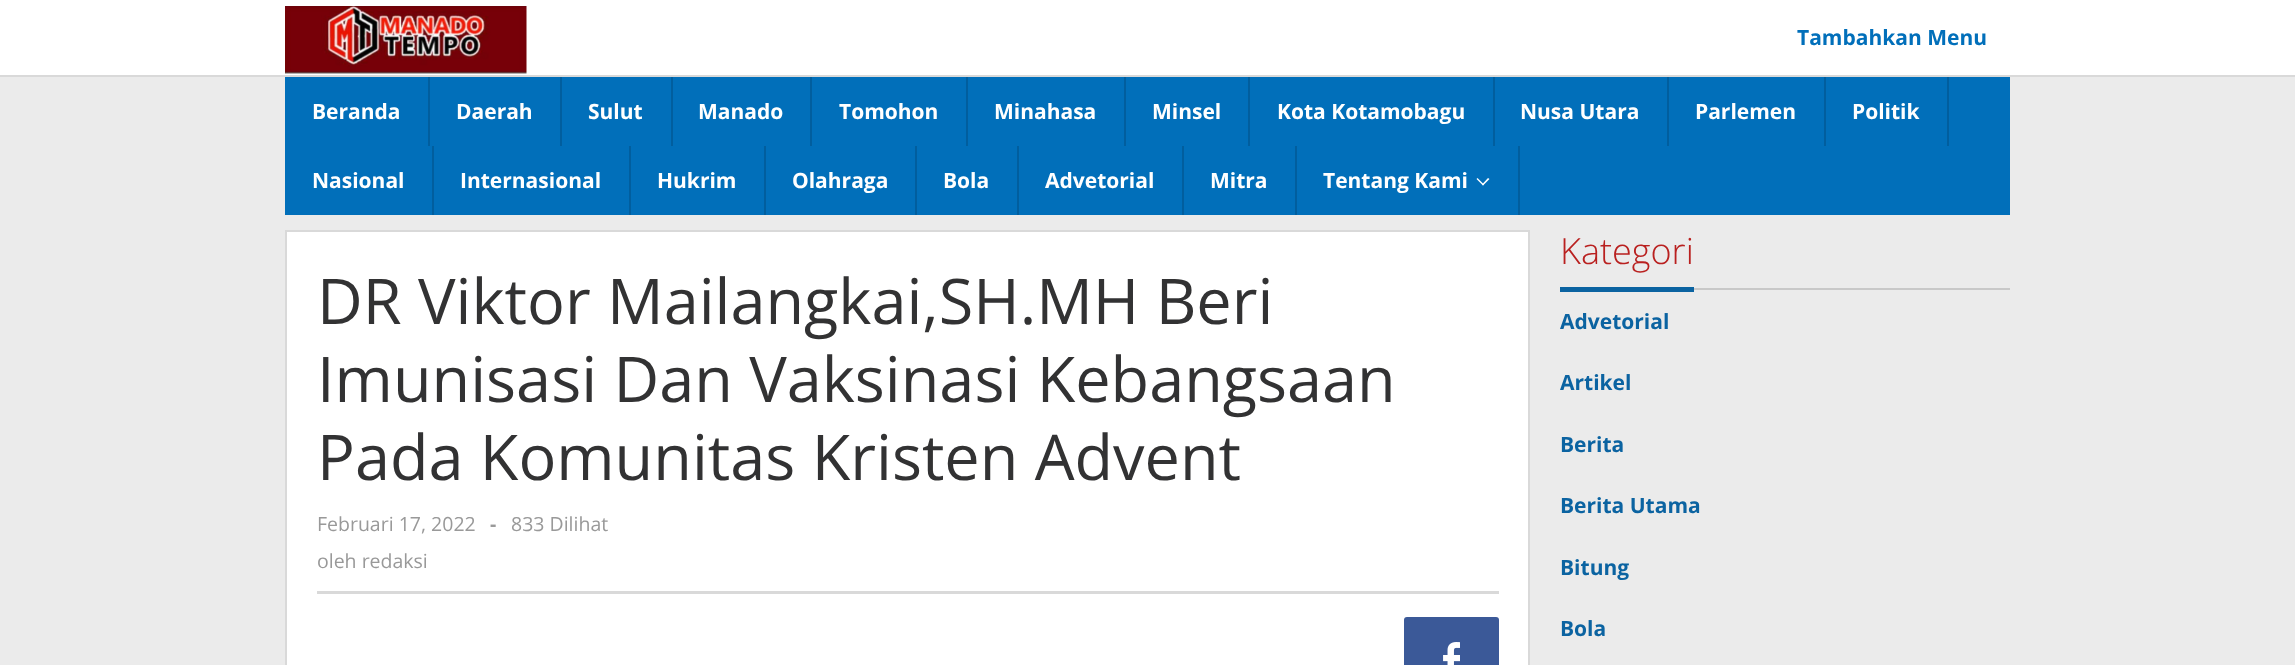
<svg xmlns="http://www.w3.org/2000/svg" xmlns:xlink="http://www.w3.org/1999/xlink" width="2295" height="665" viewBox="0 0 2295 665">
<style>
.cls-1{font:bold 21px Open Sans;fill:#016fba}
.cls-2{font:bold 21px Open Sans;fill:#ffffff}
.cls-3{font:63px Open Sans;fill:#323233}
.cls-4{font:19.5px Open Sans;fill:#999999}
.cls-5{font:bold 19.5px Open Sans;fill:#999999}
.cls-6{font:300 36px Open Sans;fill:#b9201f}
.cls-7{font:bold 21px Open Sans;fill:#0b63a1}
</style>
<rect width="100%" height="100%" fill="#ebebeb"/>
<rect fill="#ffffff" x="0" y="0" width="2295" height="75"/>
<rect fill="#d9d9d9" x="0" y="75" width="2295" height="2"/>
<image xlink:href="image0.png" x="285" y="6" width="242" height="68"/>
<rect fill="#016fba" x="285" y="77" width="1725" height="138"/>
<rect fill="#015e9e" x="428" y="77" width="2" height="69"/>
<rect fill="#015e9e" x="560" y="77" width="2" height="69"/>
<rect fill="#015e9e" x="671" y="77" width="2" height="69"/>
<rect fill="#015e9e" x="810" y="77" width="2" height="69"/>
<rect fill="#015e9e" x="966" y="77" width="2" height="69"/>
<rect fill="#015e9e" x="1124" y="77" width="2" height="69"/>
<rect fill="#015e9e" x="1248" y="77" width="2" height="69"/>
<rect fill="#015e9e" x="1493" y="77" width="2" height="69"/>
<rect fill="#015e9e" x="1667" y="77" width="2" height="69"/>
<rect fill="#015e9e" x="1824" y="77" width="2" height="69"/>
<rect fill="#015e9e" x="1947" y="77" width="2" height="69"/>
<rect fill="#015e9e" x="432" y="146" width="2" height="69"/>
<rect fill="#015e9e" x="629" y="146" width="2" height="69"/>
<rect fill="#015e9e" x="764" y="146" width="2" height="69"/>
<rect fill="#015e9e" x="915" y="146" width="2" height="69"/>
<rect fill="#015e9e" x="1017" y="146" width="2" height="69"/>
<rect fill="#015e9e" x="1182" y="146" width="2" height="69"/>
<rect fill="#015e9e" x="1295" y="146" width="2" height="69"/>
<rect fill="#015e9e" x="1518" y="146" width="2" height="69"/>
<path fill="#ffffff" d="M1488 178L1489.5 179L1483 185.5L1482 184.5Z"/>
<path fill="#ffffff" d="M1477.5 178L1484 184.5L1483 185.5L1476.5 179Z"/>
<rect fill="#ffffff" stroke="#d9d9d9" stroke-width="2" x="286" y="231" width="1243" height="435"/>
<rect fill="#d9d9d9" x="317" y="591" width="1182" height="3"/>
<rect fill="#3b5998" x="1404" y="617" width="95" height="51" rx="3"/>
<image xlink:href="image1.png" x="1443" y="642" width="17" height="23"/>
<rect fill="#c8c8c8" x="1694" y="288" width="316" height="2"/>
<rect fill="#0b63a1" x="1560" y="287" width="134" height="5"/>
<text class="cls-1" x="1797" y="45">Tambahkan Menu</text>
<text class="cls-2" x="312" y="119">Beranda</text>
<text class="cls-2" x="456" y="119">Daerah</text>
<text class="cls-2" x="588" y="119">Sulut</text>
<text class="cls-2" x="698" y="119">Manado</text>
<text class="cls-2" x="839" y="119">Tomohon</text>
<text class="cls-2" x="994" y="119">Minahasa</text>
<text class="cls-2" x="1152" y="119">Minsel</text>
<text class="cls-2" x="1277" y="119">Kota Kotamobagu</text>
<text class="cls-2" x="1520" y="119">Nusa Utara</text>
<text class="cls-2" x="1695" y="119">Parlemen</text>
<text class="cls-2" x="1852" y="119">Politik</text>
<text class="cls-2" x="312" y="188">Nasional</text>
<text class="cls-2" x="460" y="188">Internasional</text>
<text class="cls-2" x="657" y="188">Hukrim</text>
<text class="cls-2" x="792" y="188">Olahraga</text>
<text class="cls-2" x="943" y="188">Bola</text>
<text class="cls-2" x="1045" y="188">Advetorial</text>
<text class="cls-2" x="1210" y="188">Mitra</text>
<text class="cls-2" x="1323" y="188">Tentang Kami</text>
<text class="cls-3"><tspan x="317" y="324">DR Viktor Mailangkai,SH.MH Beri</tspan><tspan x="317" y="402">Imunisasi Dan Vaksinasi Kebangsaan</tspan><tspan x="317" y="480">Pada Komunitas Kristen Advent</tspan></text>
<text class="cls-4" x="317" y="531">Februari 17, 2022</text>
<text class="cls-5" x="490" y="531">-</text>
<text class="cls-4" x="511" y="531">833 Dilihat</text>
<text class="cls-4" x="317" y="568">oleh redaksi</text>
<text class="cls-6" x="1560" y="264">Kategori</text>
<text class="cls-7" x="1560" y="329">Advetorial</text>
<text class="cls-7" x="1560" y="390">Artikel</text>
<text class="cls-7" x="1560" y="452">Berita</text>
<text class="cls-7" x="1560" y="513">Berita Utama</text>
<text class="cls-7" x="1560" y="575">Bitung</text>
<text class="cls-7" x="1560" y="636">Bola</text>
</svg>
